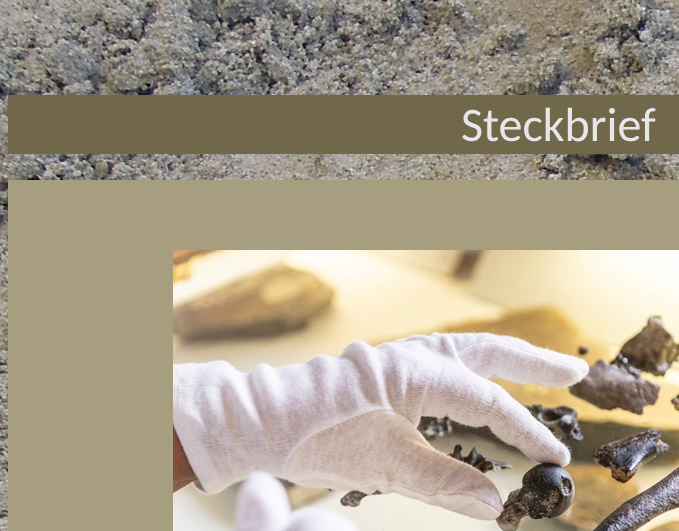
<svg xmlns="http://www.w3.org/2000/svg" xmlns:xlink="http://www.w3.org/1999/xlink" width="679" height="531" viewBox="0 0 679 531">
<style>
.cls-1{font:48px Carlito;fill:#e6e7e8}
</style>
<rect width="100%" height="100%" fill="#ffffff"/>
<image xlink:href="image0.png" x="0" y="0" width="679" height="531"/>
<rect fill="#71684b" x="8" y="95" width="671" height="59"/>
<rect fill="#a79e7f" x="8" y="180" width="671" height="351"/>
<image xlink:href="image1.png" x="173" y="250" width="506" height="281"/>
<text class="cls-1" x="461" y="141">Steckbrief</text>
</svg>
